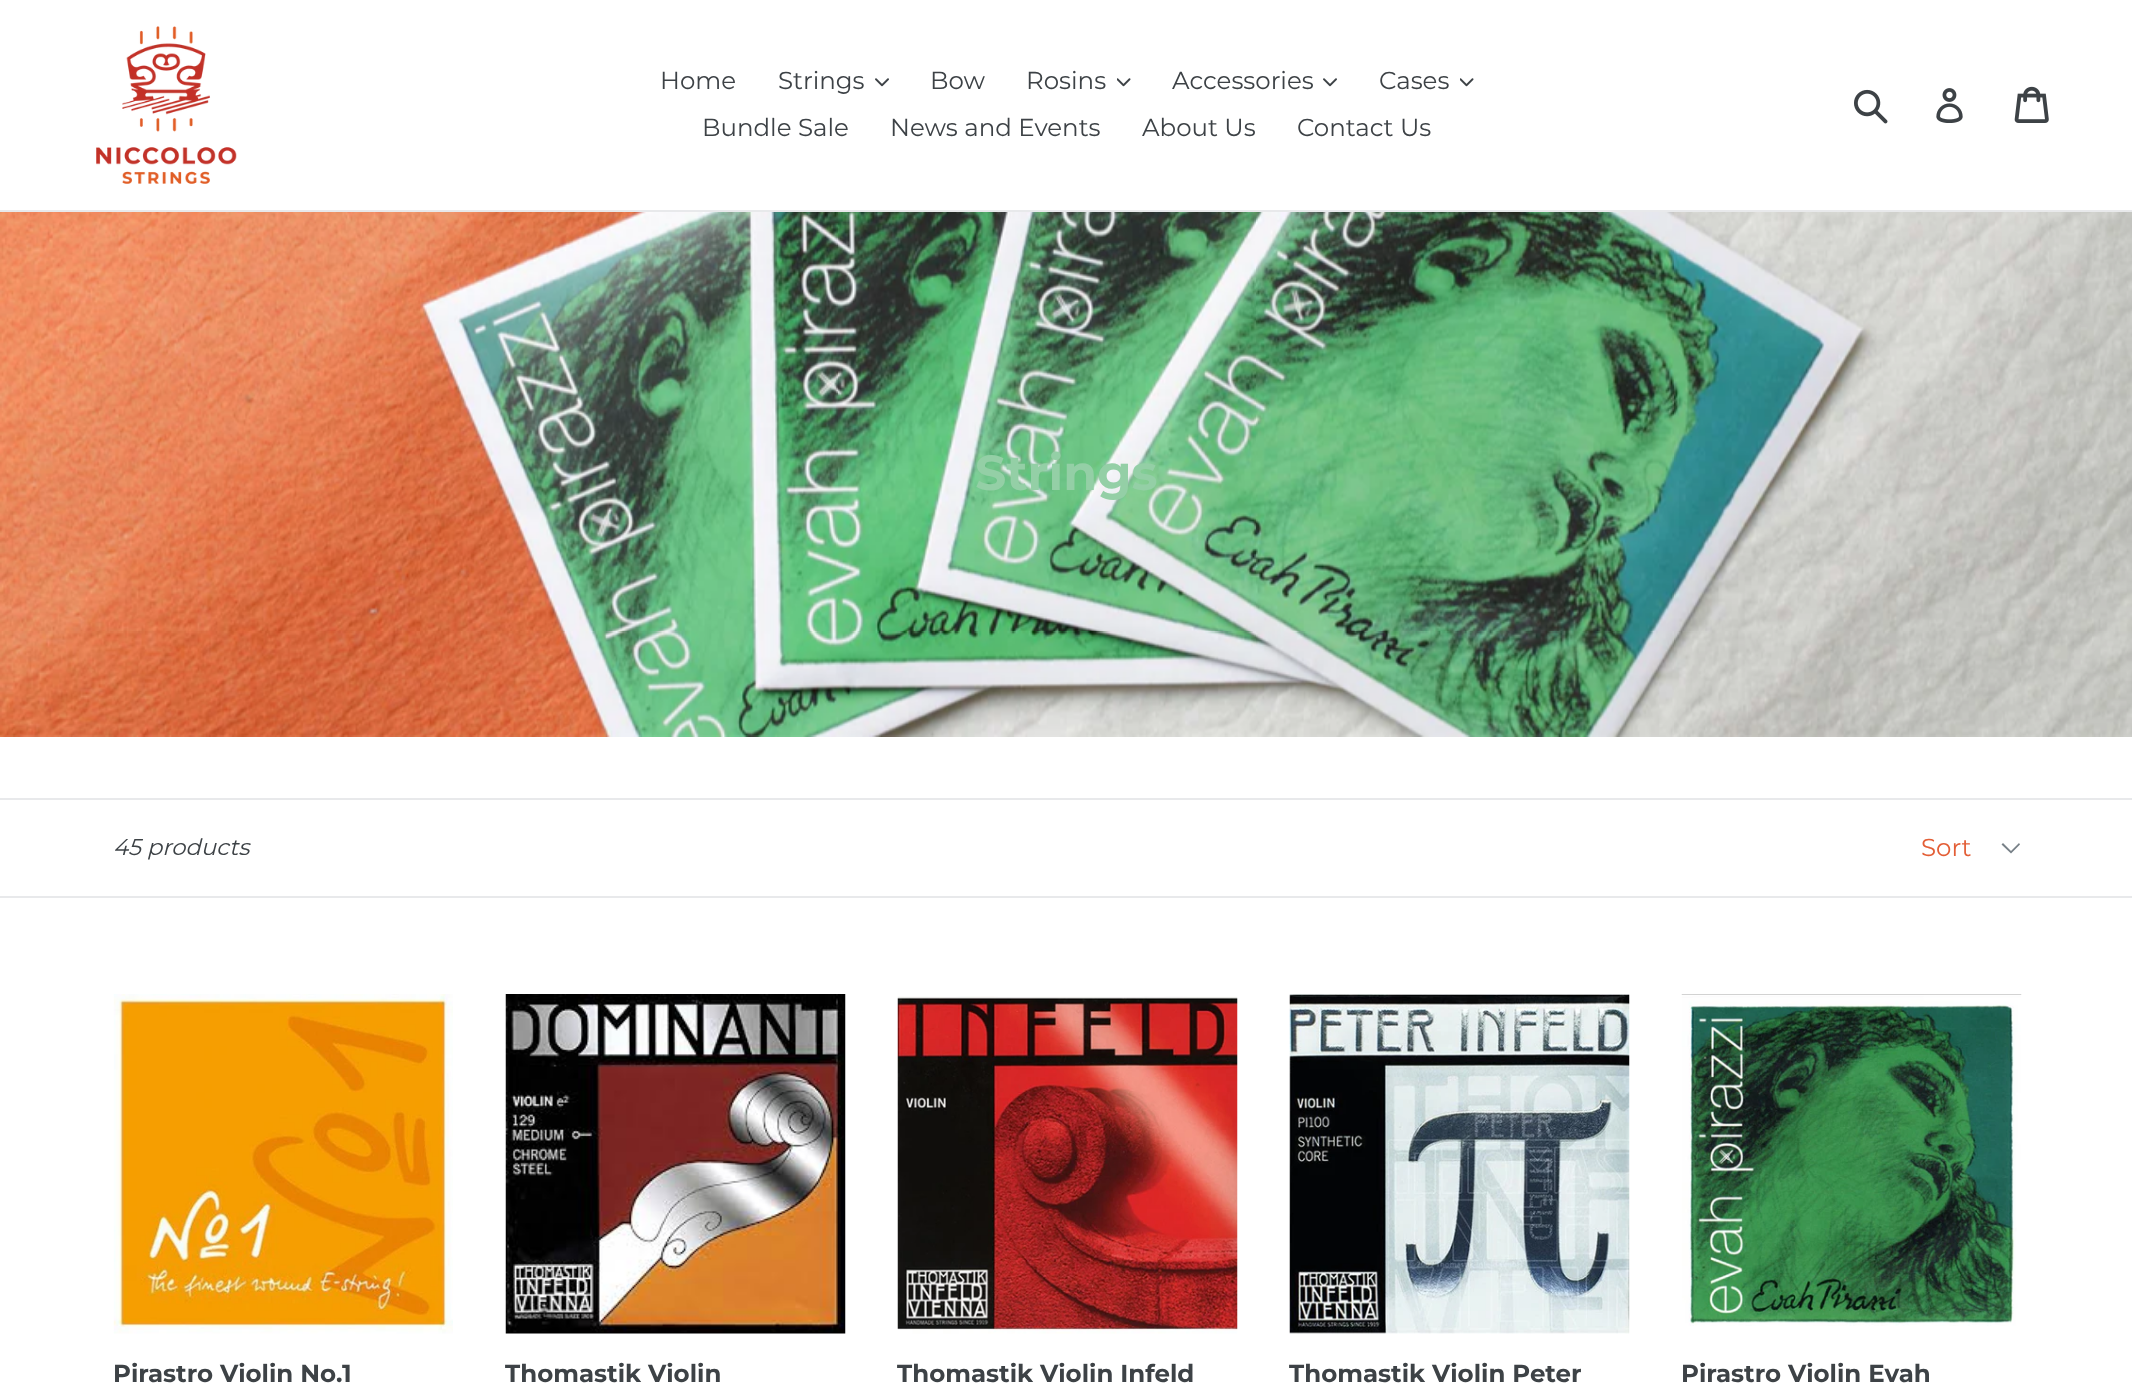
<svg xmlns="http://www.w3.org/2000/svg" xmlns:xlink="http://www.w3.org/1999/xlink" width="2132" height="1398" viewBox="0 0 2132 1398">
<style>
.cls-1{font:24.5px Montserrat;fill:#3d4246}
.cls-2{font:bold 49px Montserrat;fill:#94cfa6}
.cls-3{font:italic 22.75px Montserrat;fill:#3d4246}
.cls-4{font:24.5px Montserrat;fill:#e35e36}
.cls-5{font:bold 24.5px Montserrat;fill:#3d4246}
</style>
<rect width="100%" height="100%" fill="#ffffff"/>
<rect fill="#e8e9eb" x="0" y="210" width="2132" height="2"/>
<image xlink:href="image0.png" x="96" y="26" width="141" height="158"/>
<image xlink:href="image1.png" x="875" y="78" width="14" height="9"/>
<image xlink:href="image2.png" x="1117" y="78" width="14" height="9"/>
<image xlink:href="image1.png" x="1323" y="78" width="14" height="9"/>
<image xlink:href="image2.png" x="1460" y="78" width="14" height="9"/>
<image xlink:href="image3.png" x="1854" y="89" width="34" height="35"/>
<image xlink:href="image4.png" x="1936" y="88" width="27" height="35"/>
<image xlink:href="image5.png" x="2014" y="86" width="35" height="37"/>
<image xlink:href="image6.png" x="0" y="212" width="2132" height="525"/>
<rect fill="#e8e9eb" x="0" y="798" width="2132" height="2"/>
<rect fill="#e8e9eb" x="0" y="896" width="2132" height="2"/>
<path fill="#788188" d="M2011 853.5L2001.5 844.5L2003 843L2011 851L2019 843L2020 844.5Z"/>
<image xlink:href="image7.png" x="113" y="994" width="340" height="340"/>
<image xlink:href="image8.png" x="505" y="994" width="341" height="340"/>
<image xlink:href="image9.png" x="897" y="996" width="341" height="338"/>
<image xlink:href="image10.png" x="1289" y="994" width="341" height="340"/>
<image xlink:href="image11.png" x="1681" y="994" width="341" height="332"/>
<text class="cls-1" x="660" y="89">Home</text>
<text class="cls-1" x="778" y="89">Strings</text>
<text class="cls-1" x="930" y="89">Bow</text>
<text class="cls-1" x="1026" y="89">Rosins</text>
<text class="cls-1" x="1172" y="89">Accessories</text>
<text class="cls-1" x="1379" y="89">Cases</text>
<text class="cls-1" x="702" y="136">Bundle Sale</text>
<text class="cls-1" x="890" y="136">News and Events</text>
<text class="cls-1" x="1142" y="136">About Us</text>
<text class="cls-1" x="1297" y="136">Contact Us</text>
<text class="cls-2" x="975" y="490">Strings</text>
<text class="cls-3" x="113" y="855">45 products</text>
<text class="cls-4" x="1921" y="856">Sort</text>
<text class="cls-5" x="113" y="1382">Pirastro Violin No.1</text>
<text class="cls-5" x="505" y="1382">Thomastik Violin</text>
<text class="cls-5" x="897" y="1382">Thomastik Violin Infeld</text>
<text class="cls-5" x="1289" y="1382">Thomastik Violin Peter</text>
<text class="cls-5" x="1681" y="1382">Pirastro Violin Evah</text>
</svg>
